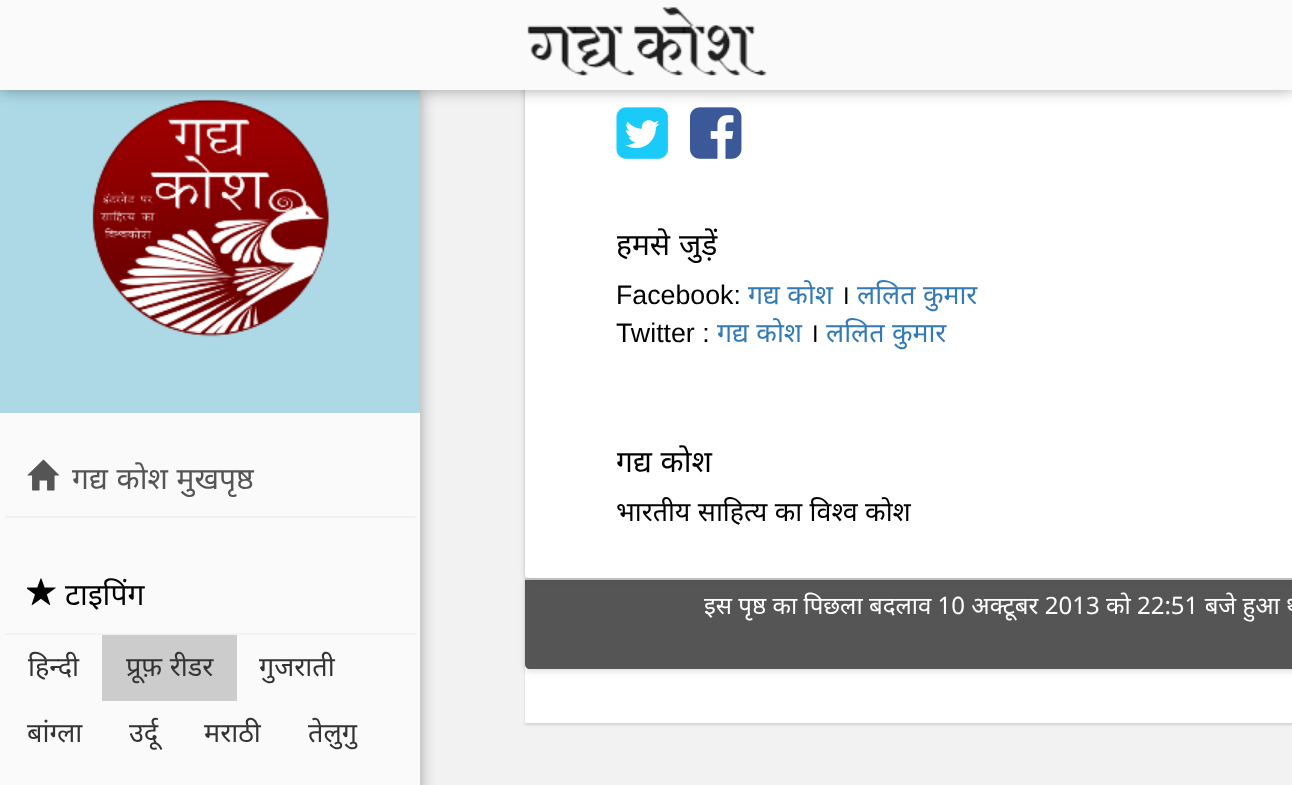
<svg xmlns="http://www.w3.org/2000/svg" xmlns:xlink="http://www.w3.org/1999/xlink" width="1292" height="785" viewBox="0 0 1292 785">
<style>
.cls-1{font:30px Noto Sans;fill:#555555}
.cls-2{font:30px Noto Sans;fill:#000000}
.cls-3{font:27px Noto Sans;fill:#333333}
.cls-4{font:26.75px Liberation Sans;fill:#000000}
.cls-5{font:26.75px Noto Sans;fill:#337ab7}
.cls-6{font:26.75px Noto Sans;fill:#000000}
.cls-7{font:24px Noto Sans;fill:#ffffff}
</style>
<defs>
<clipPath id="clip1"><rect x="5" y="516" width="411" height="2"/></clipPath>
<clipPath id="clip2"><rect x="617" y="197" width="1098" height="66"/></clipPath>
<clipPath id="clip3"><rect x="617" y="414" width="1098" height="66"/></clipPath>
</defs>
<rect width="100%" height="100%" fill="#f2f2f2"/>
<rect fill="#000000" fill-opacity="0.35" filter="blur(7.5px)" x="0" y="90" width="420" height="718"/>
<rect fill="#add8e6" x="0" y="90" width="420" height="323"/>
<image xlink:href="image1.png" x="92" y="99" width="237" height="238"/>
<rect fill="#000000" fill-opacity="0.12" filter="blur(1px)" x="525" y="-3" width="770" height="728"/>
<rect fill="#ffffff" x="525" y="573" width="767" height="150"/>
<rect fill="#000000" fill-opacity="0.14" filter="blur(3px)" x="525" y="579" width="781" height="92" rx="5"/>
<path fill="#555555" d="M525 578H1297V664C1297 667 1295 669 1292 669H530C527 669 525 667 525 664Z"/>
<rect fill="#cccccc" x="525" y="578" width="767" height="2"/>
<rect fill="#000000" fill-opacity="0.14" filter="blur(3px)" x="525" y="-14" width="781" height="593" rx="5"/>
<rect fill="#ffffff" x="525" y="-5" width="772" height="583" rx="5"/>
<image xlink:href="image4.png" x="616" y="107" width="52" height="52"/>
<image xlink:href="image5.png" x="690" y="107" width="52" height="52"/>
<rect fill="#000000" fill-opacity="0.35" filter="blur(7.5px)" x="0" y="0" width="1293" height="90"/>
<rect fill="#fafafa" x="0" y="0" width="1292" height="90"/>
<image xlink:href="image0.png" x="527" y="7" width="240" height="69"/>
<rect fill="#fafafa" x="0" y="413" width="420" height="372"/>
<g clip-path="url(#clip1)">
<rect fill="#000000" fill-opacity="0.05" filter="blur(1px)" x="5" y="444" width="411" height="74"/>
</g>
<image xlink:href="image2.png" x="27" y="459" width="33" height="32"/>
<rect fill="#f2f2f2" x="5" y="633" width="411" height="2"/>
<image xlink:href="image3.png" x="27" y="578" width="29" height="28"/>
<rect fill="#cccccc" x="102" y="635" width="135" height="66"/>
<text class="cls-1" x="72" y="489" word-spacing="1">गद्य कोश मुखपृष्ठ</text>
<text class="cls-2" x="65" y="605">टाइपिंग</text>
<text class="cls-3" x="28" y="676">हिन्दी</text>
<text class="cls-3" x="126" y="676" word-spacing="0.5">प्रूफ़ रीडर</text>
<text class="cls-3" x="259" y="676">गुजराती</text>
<text class="cls-3" x="27" y="742">बांग्ला</text>
<text class="cls-3" x="129" y="742">उर्दू</text>
<text class="cls-3" x="204" y="742">मराठी</text>
<text class="cls-3" x="308" y="742">तेलुगु</text>
<g clip-path="url(#clip2)">
<text class="cls-2" x="616" y="255" word-spacing="1">हमसे जुड़ें</text>
</g>
<text class="cls-4" x="616" y="304">Facebook:</text>
<text class="cls-5" x="748" y="304" word-spacing="0.5">गद्य कोश</text>
<text class="cls-6" x="840" y="304">।</text>
<text class="cls-5" x="857" y="304" word-spacing="0.5">ललित कुमार</text>
<text class="cls-4" x="616" y="342">Twitter :</text>
<text class="cls-5" x="717" y="342" word-spacing="0.5">गद्य कोश</text>
<text class="cls-6" x="809" y="342">।</text>
<text class="cls-5" x="826" y="342" word-spacing="0.5">ललित कुमार</text>
<g clip-path="url(#clip3)">
<text class="cls-2" x="616" y="472" word-spacing="1">गद्य कोश</text>
</g>
<text class="cls-6" x="616" y="521" word-spacing="0.5">भारतीय साहित्य का विश्व कोश</text>
<text class="cls-7" x="704" y="614" word-spacing="0.1">इस पृष्ठ का पिछला बदलाव 10 अक्टूबर 2013 को 22:51 बजे हुआ थ</text>
</svg>
